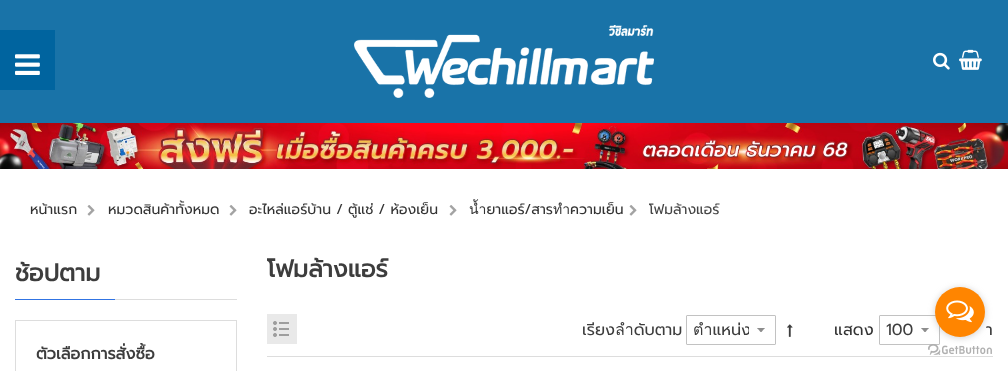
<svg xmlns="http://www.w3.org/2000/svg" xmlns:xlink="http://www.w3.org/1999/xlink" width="1008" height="371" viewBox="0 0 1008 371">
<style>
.cls-1{font:14px Prompt;fill:#333333}
.cls-2{font:14px Prompt;fill:#444444}
.cls-3{font:bold 24px Prompt;fill:#3d3d3d}
.cls-4{font:bold 16px Prompt;fill:#3d3d3d}
.cls-5{font:16px Prompt;fill:#3d3d3d}
.cls-6{font:16px Prompt;fill:#333333}
</style>
<defs>
<clipPath id="clip1"><rect x="692" y="322" width="57" height="16"/></clipPath>
</defs>
<rect width="100%" height="100%" fill="#ffffff"/>
<rect fill="#1973a8" x="0" y="0" width="1008" height="123"/>
<image xlink:href="image0.png" x="354" y="25" width="300" height="73"/>
<image xlink:href="image1.png" x="933" y="52" width="17" height="18"/>
<image xlink:href="image2.png" x="959" y="49" width="23" height="21"/>
<rect fill="#00649f" x="0" y="30" width="55" height="60"/>
<image xlink:href="image3.png" x="15" y="54" width="25" height="21"/>
<image xlink:href="image4.png" x="0" y="123" width="1008" height="46"/>
<image xlink:href="image5.png" x="87" y="205" width="8" height="11"/>
<image xlink:href="image5.png" x="229" y="205" width="8" height="11"/>
<image xlink:href="image5.png" x="449" y="205" width="8" height="11"/>
<image xlink:href="image5.png" x="629" y="205" width="8" height="11"/>
<rect fill="#dddddd" x="115" y="299" width="122" height="1"/>
<rect fill="#3174e3" x="15" y="299" width="100" height="1"/>
<rect fill="none" stroke="#dddddd" x="15.5" y="320.5" width="221" height="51"/>
<rect fill="#dddddd" x="267" y="356" width="726" height="1"/>
<rect fill="#e9e9e9" x="267" y="314" width="30" height="30"/>
<image xlink:href="image6.png" x="273" y="321" width="16" height="16"/>
<image xlink:href="image7.png" x="757" y="328" width="8" height="4"/>
<rect fill="none" stroke="#c2c2c2" x="686.5" y="315.5" width="89" height="29" rx="0.5"/>
<image xlink:href="image8.png" x="787" y="324" width="6" height="13"/>
<image xlink:href="image7.png" x="921" y="328" width="8" height="4"/>
<rect fill="none" stroke="#c2c2c2" x="879.5" y="315.5" width="60" height="29" rx="0.5"/>
<image xlink:href="image10.png" x="928" y="344" width="64" height="11"/>
<rect fill="#888888" fill-opacity="0.4" filter="blur(3.5px)" x="935" y="288" width="50" height="50" rx="25"/>
<circle fill="#ff8500" cx="960" cy="312" r="25"/>
<image xlink:href="image9.png" x="946" y="300" width="28" height="23"/>
<text class="cls-1" x="30" y="214">หน้าแรก</text>
<text class="cls-1" x="108" y="214">หมวดสินค้าทั้งหมด</text>
<text class="cls-1" x="249" y="214">อะไหล่แอร์บ้าน / ตู้แช่ / ห้องเย็น</text>
<text class="cls-1" x="469" y="214">น้ำยาแอร์/สารทำความเย็น</text>
<text class="cls-2" x="649" y="214">โฟมล้างแอร์</text>
<text class="cls-3" x="15" y="281">ช้อปตาม</text>
<text class="cls-4" x="36" y="359">ตัวเลือกการสั่งซื้อ</text>
<text class="cls-3" x="267" y="277">โฟมล้างแอร์</text>
<text class="cls-5" x="582" y="335">เรียงลำดับตาม</text>
<g clip-path="url(#clip1)">
<text class="cls-5" x="693" y="335">ตำแหน่ง</text>
</g>
<text class="cls-6" x="834" y="335">แสดง</text>
<text class="cls-5" x="886" y="335">100</text>
<text class="cls-5" x="986" y="335">า</text>
</svg>
